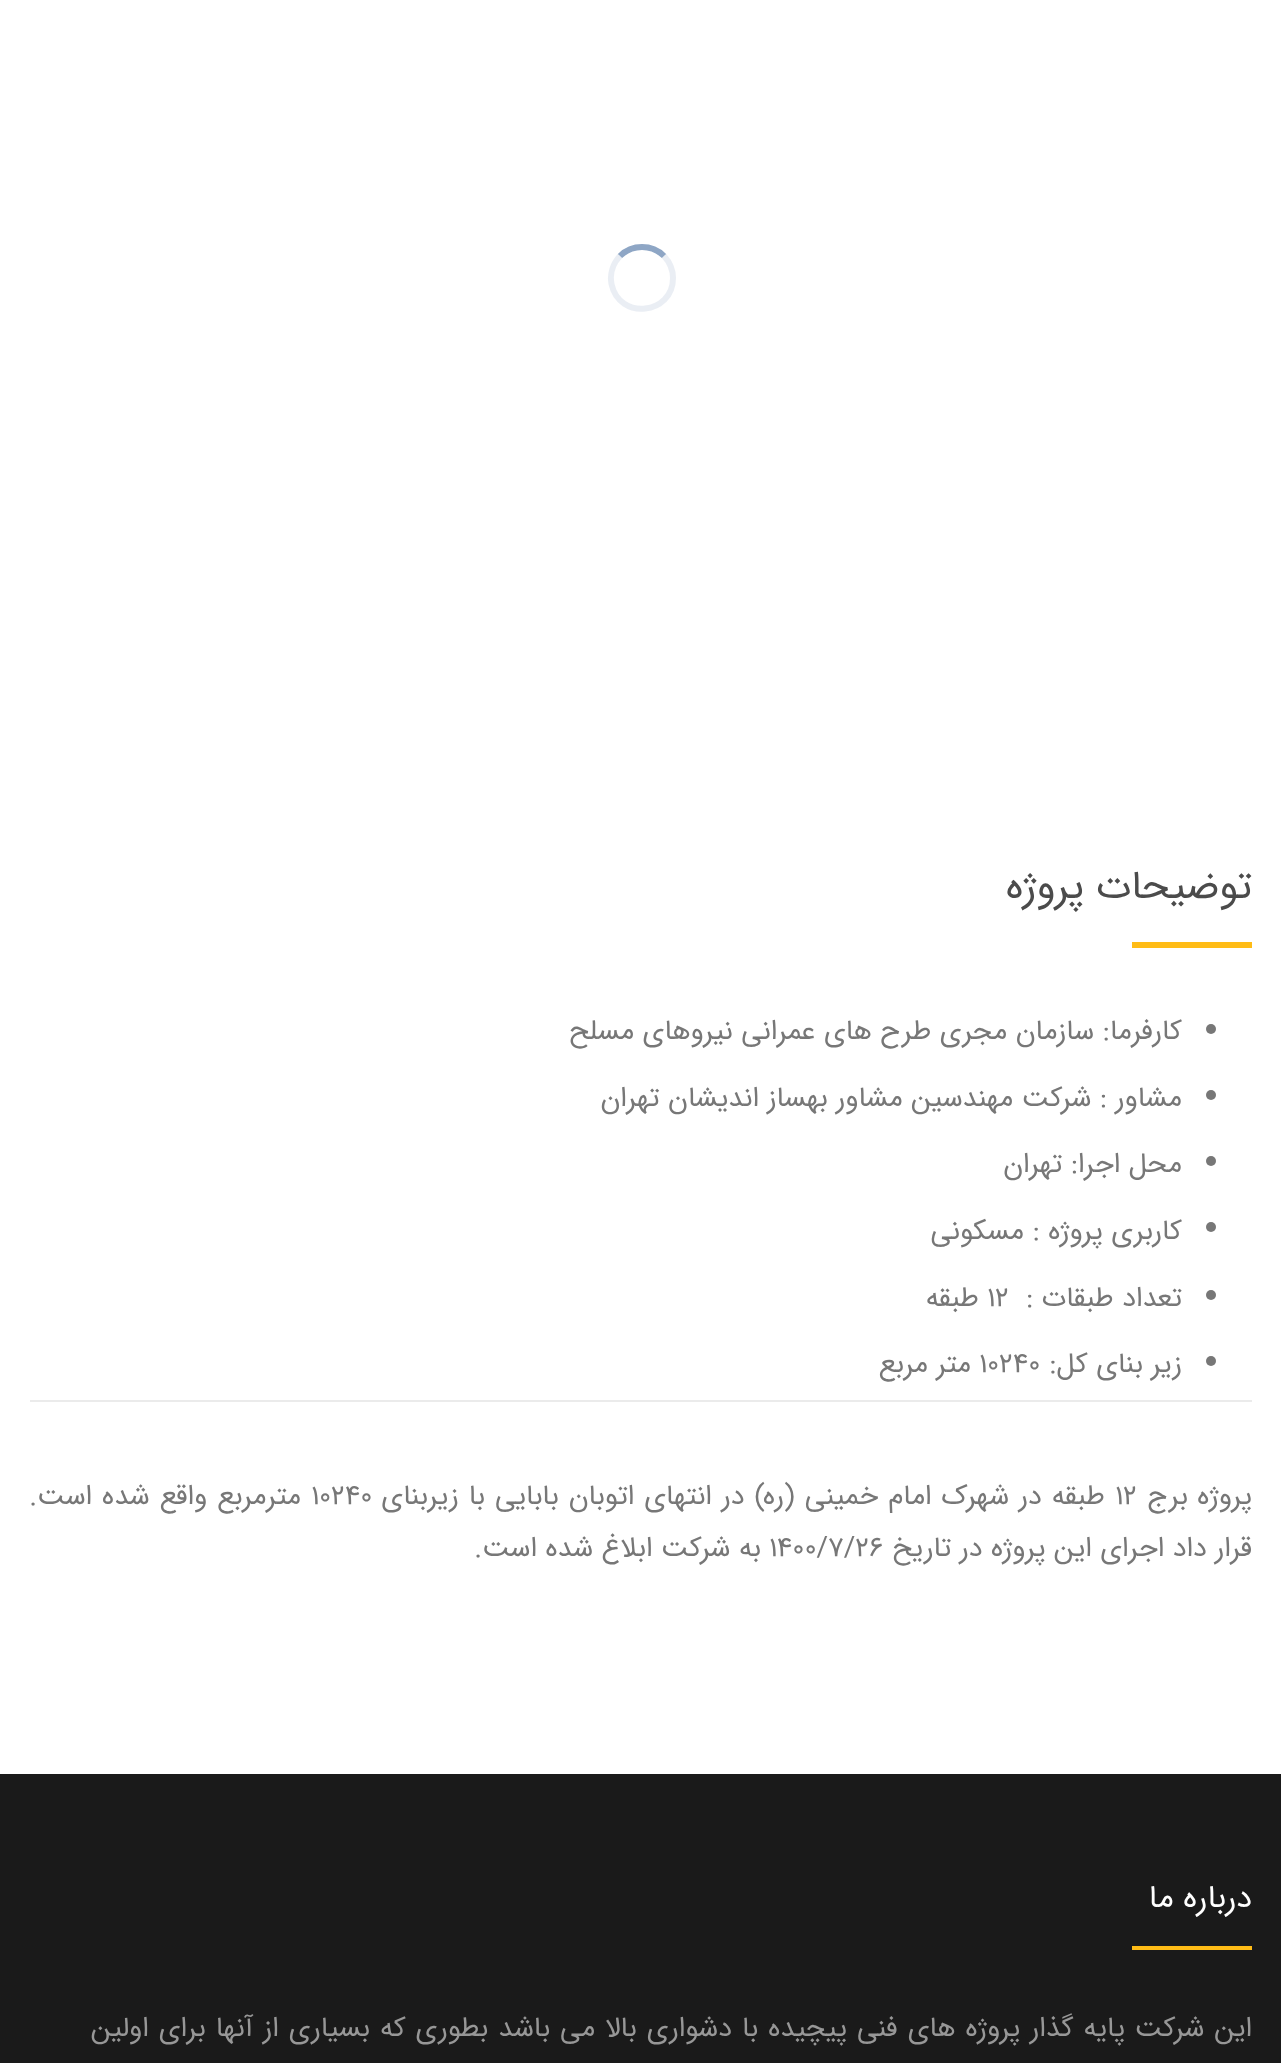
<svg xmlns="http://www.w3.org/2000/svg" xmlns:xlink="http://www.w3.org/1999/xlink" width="1281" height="2063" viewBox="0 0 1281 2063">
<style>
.cls-1{font:40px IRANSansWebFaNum;direction:rtl;fill:#4b4b4b}
.cls-2{font:28px IRANSansWebFaNum;direction:rtl;fill:#777777}
.cls-3{font:28px IRANSansWebFaNum;fill:#777777}
.cls-4{font:32px IRANSansWebFaNum;direction:rtl;fill:#ffffff}
.cls-5{font:28px IRANSansWebFaNum;direction:rtl;fill:#979797}
</style>
<rect width="100%" height="100%" fill="#ffffff"/>
<path fill="none" stroke="#8ea6c5" stroke-width="6" d="M620 256C632 244 652 244 664 256"/>
<path fill="none" stroke="#7290b6" stroke-opacity="0.15" stroke-width="6" d="M664 256C669.5 262 673 270 673 278C673 315 619 320.5 611.5 284C609.5 274 613 263.5 620 256"/>
<rect fill="#ffbc16" x="1132" y="942" width="120" height="6"/>
<circle fill="#777777" cx="1211" cy="1029" r="5"/>
<circle fill="#777777" cx="1211" cy="1095" r="5"/>
<circle fill="#777777" cx="1211" cy="1161" r="5"/>
<circle fill="#777777" cx="1211" cy="1227" r="5"/>
<circle fill="#777777" cx="1211" cy="1295" r="5"/>
<circle fill="#777777" cx="1211" cy="1361" r="5"/>
<rect fill="#ebebeb" x="30" y="1400" width="1222" height="2"/>
<rect fill="#1a1a1a" x="0" y="1774" width="1281" height="289"/>
<rect fill="#ffbc16" x="1132" y="1946" width="120" height="4"/>
<text class="cls-1" x="1252" y="898">توضیحات پروژه</text>
<text class="cls-2" x="1182" y="1039">کارفرما: سازمان مجری طرح های عمرانی نیروهای مسلح</text>
<text class="cls-2" x="1182" y="1106">مشاور : شرکت مهندسین مشاور بهساز اندیشان تهران</text>
<text class="cls-2" x="1182" y="1172">محل اجرا: تهران</text>
<text class="cls-2" x="1182" y="1239">کاربری پروژه : مسکونی</text>
<text class="cls-2" x="1182" y="1306">تعداد طبقات :</text>
<text class="cls-3" x="987" y="1306">12</text>
<text class="cls-2" x="979" y="1306">طبقه</text>
<text class="cls-2" x="1182" y="1372">زیر بنای کل:</text>
<text class="cls-3" x="979" y="1372">10240</text>
<text class="cls-2" x="971" y="1372">متر مربع</text>
<text class="cls-2" x="1252" y="1504" word-spacing="1">پروژه برج</text>
<text class="cls-3" x="1115" y="1504">12</text>
<text class="cls-2" x="1105" y="1504" word-spacing="1.5">طبقه در شهرک امام خمینی (ره) در انتهای اتوبان بابایی با زیربنای</text>
<text class="cls-3" x="311" y="1504">10240</text>
<text class="cls-2" x="301" y="1504" word-spacing="1.5">مترمربع واقع شده است.</text>
<text class="cls-2" x="1252" y="1556">قرار داد اجرای این پروژه در تاریخ</text>
<text class="cls-3" x="769" y="1556">1400/7/26</text>
<text class="cls-2" x="761" y="1556">به شرکت ابلاغ شده است.</text>
<text class="cls-4" x="1252" y="1907">درباره ما</text>
<text class="cls-5" x="1252" y="2036" word-spacing="1.5">این شرکت پایه گذار پروژه های فنی پیچیده با دشواری بالا می باشد بطوری که بسیاری از آنها برای اولین</text>
</svg>
